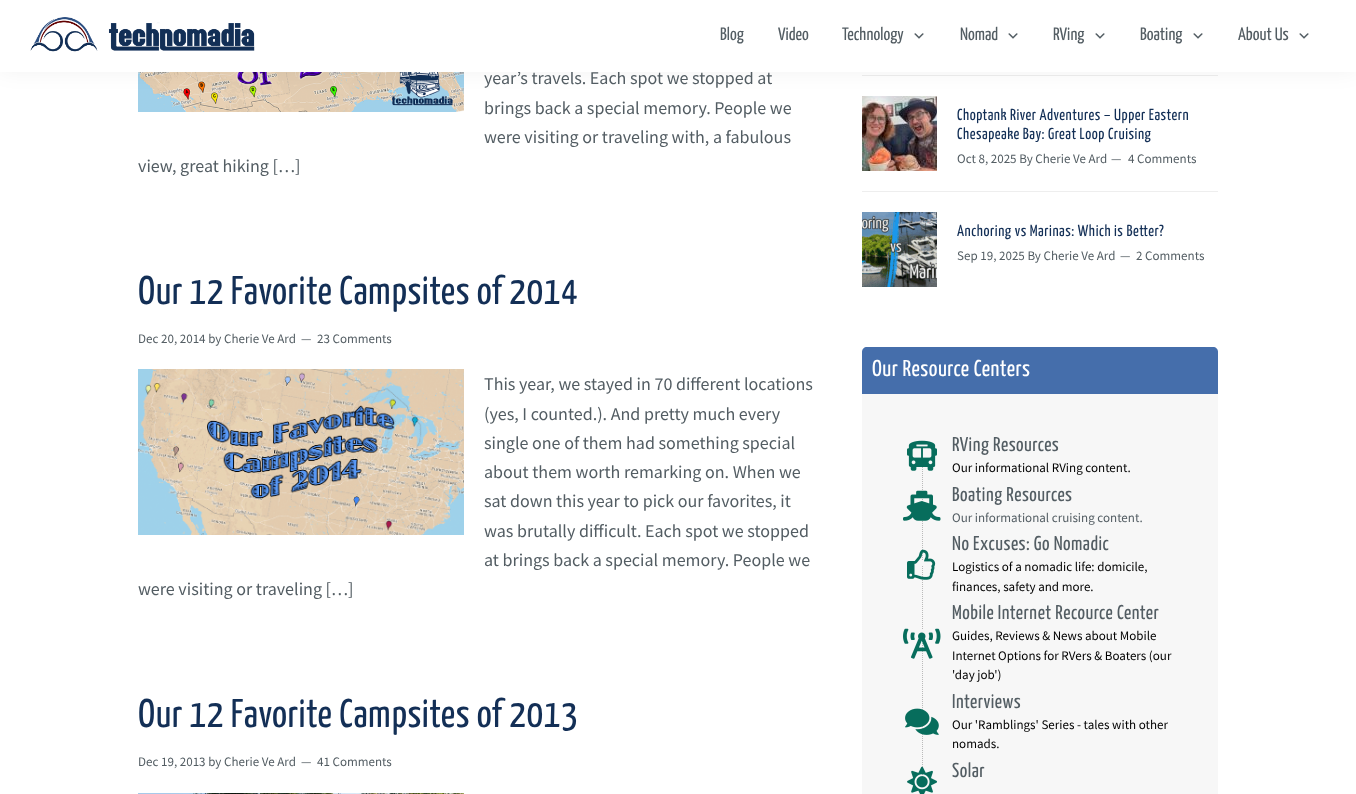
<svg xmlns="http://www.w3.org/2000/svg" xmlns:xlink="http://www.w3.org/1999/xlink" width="1356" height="794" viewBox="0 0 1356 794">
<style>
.cls-1{font:18px Source Sans Pro;fill:#535d63}
.cls-2{font:18px Yanone Kaffeesatz;fill:#535d63}
.cls-3{font:40px Yanone Kaffeesatz;letter-spacing:0.5px;fill:#132f56}
.cls-4{font:13px Source Sans Pro;fill:#535d63}
.cls-5{font:16px Yanone Kaffeesatz;letter-spacing:0.5px;fill:#132f56}
.cls-6{font:23px Yanone Kaffeesatz;letter-spacing:0.5px;fill:#ffffff}
.cls-7{font:20px Yanone Kaffeesatz;letter-spacing:0.5px;fill:#535d63}
.cls-8{font:13px Source Sans Pro;fill:#000000}
</style>
<rect width="100%" height="100%" fill="#ffffff"/>
<image xlink:href="image2.png" x="138" y="72" width="326" height="40"/>
<rect fill="#eeeeee" x="862" y="75" width="356" height="1"/>
<image xlink:href="image5.png" x="862" y="96" width="75" height="75"/>
<rect fill="#000000" fill-opacity="0.05" filter="blur(10px)" x="0" y="0" width="1356" height="72"/>
<image xlink:href="image3.png" x="138" y="369" width="326" height="166"/>
<image xlink:href="image4.png" x="138" y="793" width="326" height="1"/>
<rect fill="#eeeeee" x="862" y="191" width="356" height="1"/>
<image xlink:href="image6.png" x="862" y="212" width="75" height="75"/>
<path fill="#456eab" d="M867 347H1213C1216 347 1218 349 1218 352V394H862V352C862 349 864 347 867 347Z"/>
<rect fill="#f7f7f7" x="862" y="394" width="356" height="400"/>
<path fill="none" stroke="#bababa" stroke-dasharray="1 1" d="M922.5 467V511"/>
<image xlink:href="image7.png" x="907" y="440" width="30" height="31"/>
<path fill="none" stroke="#bababa" stroke-dasharray="1 1" d="M922.5 517V560"/>
<image xlink:href="image8.png" x="903" y="490" width="38" height="31"/>
<path fill="none" stroke="#bababa" stroke-dasharray="1 1" d="M922.5 566V629"/>
<image xlink:href="image9.png" x="907" y="549" width="29" height="31"/>
<path fill="none" stroke="#bababa" stroke-dasharray="1 1" d="M922.5 635V718"/>
<image xlink:href="image10.png" x="903" y="628" width="38" height="31"/>
<path fill="none" stroke="#bababa" stroke-dasharray="1 1" d="M922.5 724V787"/>
<image xlink:href="image11.png" x="905" y="708" width="34" height="27"/>
<image xlink:href="image12.png" x="907" y="766" width="30" height="28"/>
<text class="cls-1" x="484" y="84">year’s travels. Each spot we stopped at</text>
<rect fill="#ffffff" x="0" y="0" width="1356" height="72"/>
<image xlink:href="image1.png" x="1299" y="33" width="10" height="6"/>
<text class="cls-2" x="1238" y="40">About Us</text>
<image xlink:href="image1.png" x="1193" y="33" width="10" height="6"/>
<text class="cls-2" x="1140" y="40">Boating</text>
<image xlink:href="image1.png" x="1095" y="33" width="10" height="6"/>
<text class="cls-2" x="1053" y="40">RVing</text>
<image xlink:href="image1.png" x="1008" y="33" width="10" height="6"/>
<text class="cls-2" x="960" y="40">Nomad</text>
<image xlink:href="image1.png" x="914" y="33" width="10" height="6"/>
<text class="cls-2" x="842" y="40">Technology</text>
<text class="cls-2" x="778" y="40">Video</text>
<text class="cls-2" x="720" y="40">Blog</text>
<image xlink:href="image0.png" x="30" y="17" width="225" height="35"/>
<text class="cls-1"><tspan x="484" y="114">brings back a special memory. People we</tspan><tspan x="484" y="143">were visiting or traveling with, a fabulous</tspan></text>
<text class="cls-1" x="138" y="172">view, great hiking […]</text>
<text class="cls-3" x="138" y="304">Our 12 Favorite Campsites of 2014</text>
<text class="cls-4" x="138" y="343">Dec 20, 2014 by Cherie Ve Ard</text>
<text class="cls-4" x="301" y="343">—</text>
<text class="cls-4" x="317" y="343">23 Comments</text>
<text class="cls-1"><tspan x="484" y="390">This year, we stayed in 70 different locations</tspan><tspan x="484" y="420">(yes, I counted.). And pretty much every</tspan><tspan x="484" y="449">single one of them had something special</tspan><tspan x="484" y="478">about them worth remarking on. When we</tspan><tspan x="484" y="507">sat down this year to pick our favorites, it</tspan><tspan x="484" y="537">was brutally difficult. Each spot we stopped</tspan><tspan x="484" y="566">at brings back a special memory. People we</tspan></text>
<text class="cls-1" x="138" y="595">were visiting or traveling […]</text>
<text class="cls-3" x="138" y="727">Our 12 Favorite Campsites of 2013</text>
<text class="cls-4" x="138" y="766">Dec 19, 2013 by Cherie Ve Ard</text>
<text class="cls-4" x="301" y="766">—</text>
<text class="cls-4" x="317" y="766">41 Comments</text>
<text class="cls-5"><tspan x="957" y="120">Choptank River Adventures – Upper Eastern</tspan><tspan x="957" y="139">Chesapeake Bay: Great Loop Cruising</tspan></text>
<text class="cls-4" x="957" y="163">Oct 8, 2025 By Cherie Ve Ard</text>
<text class="cls-4" x="1111" y="163">—</text>
<text class="cls-4" x="1128" y="163">4 Comments</text>
<text class="cls-5" x="957" y="236">Anchoring vs Marinas: Which is Better?</text>
<text class="cls-4" x="957" y="260">Sep 19, 2025 By Cherie Ve Ard</text>
<text class="cls-4" x="1120" y="260">—</text>
<text class="cls-4" x="1136" y="260">2 Comments</text>
<text class="cls-6" x="872" y="376">Our Resource Centers</text>
<text class="cls-7" x="952" y="451">RVing Resources</text>
<text class="cls-8" x="952" y="472">Our informational RVing content.</text>
<text class="cls-7" x="952" y="501">Boating Resources</text>
<text class="cls-4" x="952" y="522">Our informational cruising content.</text>
<text class="cls-7" x="952" y="550">No Excuses: Go Nomadic</text>
<text class="cls-8"><tspan x="952" y="571">Logistics of a nomadic life: domicile,</tspan><tspan x="952" y="591">finances, safety and more.</tspan></text>
<text class="cls-7" x="952" y="619">Mobile Internet Recource Center</text>
<text class="cls-8"><tspan x="952" y="640">Guides, Reviews &amp; News about Mobile</tspan><tspan x="952" y="660">Internet Options for RVers &amp; Boaters (our</tspan><tspan x="952" y="679">'day job')</tspan></text>
<text class="cls-7" x="952" y="708">Interviews</text>
<text class="cls-8"><tspan x="952" y="729">Our 'Ramblings' Series - tales with other</tspan><tspan x="952" y="748">nomads.</tspan></text>
<text class="cls-7" x="952" y="777">Solar</text>
</svg>
